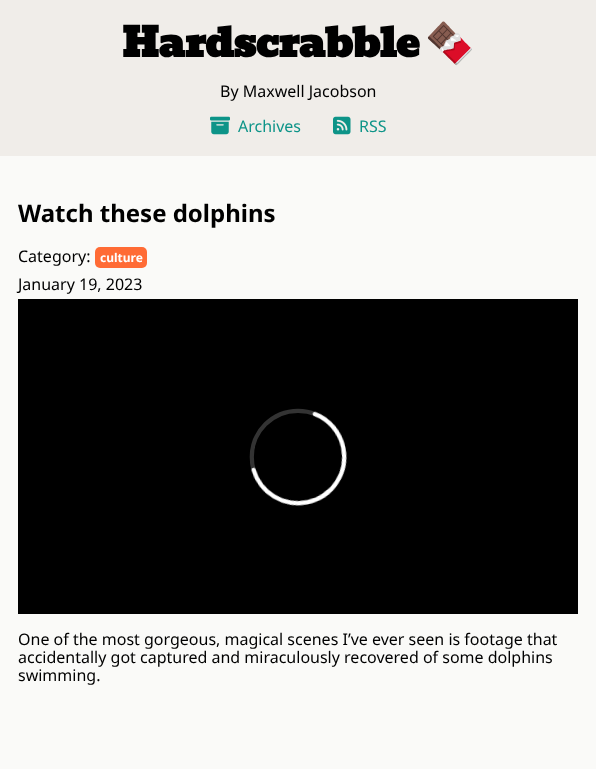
<svg xmlns="http://www.w3.org/2000/svg" xmlns:xlink="http://www.w3.org/1999/xlink" width="596" height="769" viewBox="0 0 596 769">
<style>
.cls-1{font:bold 40px Bevan;letter-spacing:-0.75px;fill:#000000}
.cls-2{font:bold 40px Noto Color Emoji;letter-spacing:-0.75px;fill:#000000}
.cls-3{font:16px Noto Sans;fill:#000000}
.cls-4{font:16px Noto Sans;fill:#0d9488}
.cls-5{font:bold 24px Noto Sans;fill:#000000}
.cls-6{font:bold 12px Noto Sans;fill:#ffffff}
</style>
<rect width="100%" height="100%" fill="#fafaf8"/>
<rect fill="#f0ede9" x="0" y="0" width="596" height="156"/>
<image xlink:href="image0.png" x="210" y="116" width="20" height="19"/>
<image xlink:href="image1.png" x="333" y="116" width="18" height="19"/>
<rect fill="#ff6b35" x="95" y="247" width="52" height="21" rx="5"/>
<image xlink:href="image2.png" x="18" y="299" width="560" height="315"/>
<text class="cls-1" x="122" y="57">Hardscrabble</text>
<text class="cls-2" x="425" y="57">🍫</text>
<text class="cls-3" x="220" y="97">By Maxwell Jacobson</text>
<text class="cls-4" x="238" y="132">Archives</text>
<text class="cls-4" x="359" y="132">RSS</text>
<text class="cls-5" x="18" y="222">Watch these dolphins</text>
<text class="cls-3" x="18" y="262">Category:</text>
<text class="cls-6" x="100" y="262">culture</text>
<text class="cls-3" x="18" y="290">January 19, 2023</text>
<text class="cls-3"><tspan x="18" y="645">One of the most gorgeous, magical scenes I’ve ever seen is footage that</tspan><tspan x="18" y="663">accidentally got captured and miraculously recovered of some dolphins</tspan><tspan x="18" y="681">swimming.</tspan></text>
</svg>
